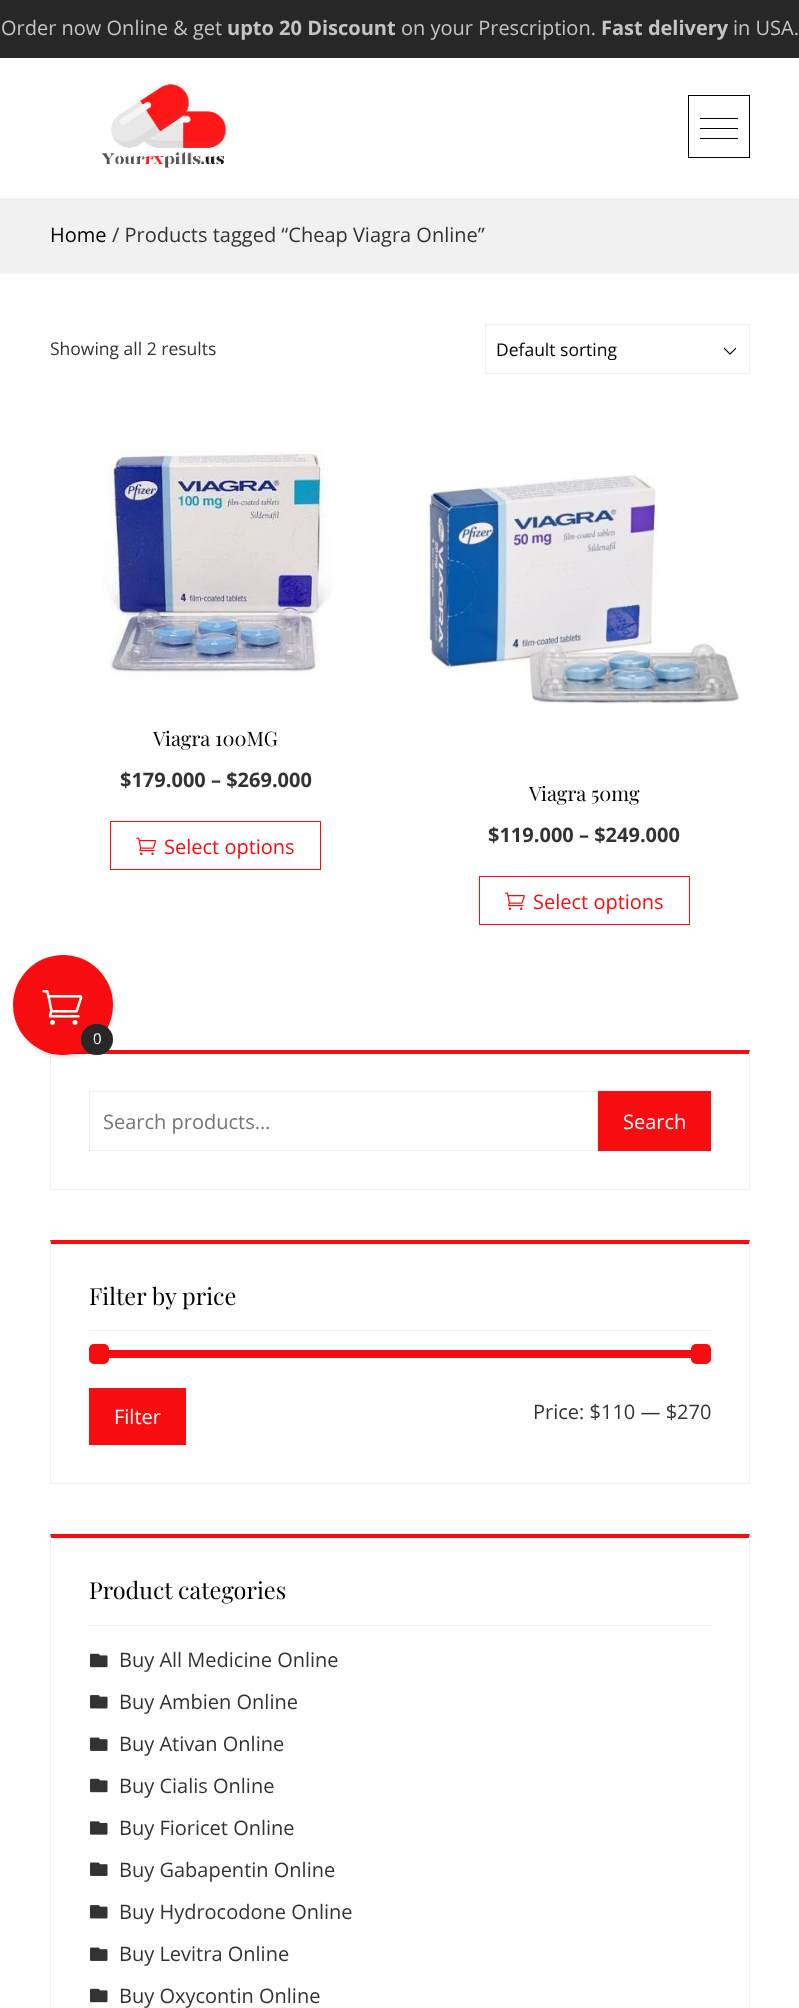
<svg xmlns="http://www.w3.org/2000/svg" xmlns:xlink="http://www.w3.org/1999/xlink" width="799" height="2008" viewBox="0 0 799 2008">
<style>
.cls-1{font:20px Open Sans;fill:#c4c4c4}
.cls-2{font:bold 20px Open Sans;fill:#c4c4c4}
.cls-3{font:20px Open Sans;fill:#000000}
.cls-4{font:20px Open Sans;fill:#333333}
.cls-5{font:17.5px Open Sans;fill:#333333}
.cls-6{font:17.5px Open Sans;fill:#000000}
.cls-7{font:20px Playfair Display;fill:#000000}
.cls-8{font:bold 20px Open Sans;fill:#333333}
.cls-9{font:20px Open Sans;fill:#f70d10}
.cls-10{font:20px Open Sans;fill:#757575}
.cls-11{font:20px Open Sans;fill:#ffffff}
.cls-12{font:23.5px Playfair Display;fill:#000000}
.cls-13{font:15px Open Sans;fill:#ffffff}
</style>
<defs>
<clipPath id="clip1"><rect x="496" y="339" width="203" height="21"/></clipPath>
</defs>
<rect width="100%" height="100%" fill="#ffffff"/>
<rect fill="#272727" x="0" y="0" width="799" height="58"/>
<rect fill="#f6f6f6" x="0" y="196" width="799" height="1"/>
<image xlink:href="image0.png" x="101" y="84" width="126" height="84"/>
<rect fill="none" stroke="#000000" x="688.5" y="95.5" width="61" height="62"/>
<rect fill="#000000" x="700" y="128" width="38" height="1"/>
<rect fill="#000000" x="700" y="118" width="38" height="1"/>
<rect fill="#000000" x="700" y="138" width="38" height="1"/>
<rect fill="#f1f1f1" x="0" y="198" width="799" height="76"/>
<image xlink:href="image1.png" x="724" y="347" width="12" height="8"/>
<rect fill="none" stroke="#eeeeee" x="485.5" y="324.5" width="264" height="49"/>
<image xlink:href="image2.png" x="103" y="450" width="229" height="226"/>
<rect fill="none" stroke="#f70d10" x="110.5" y="821.5" width="210" height="48"/>
<image xlink:href="image3.png" x="136" y="837" width="21" height="18"/>
<image xlink:href="image4.png" x="419" y="475" width="320" height="229"/>
<rect fill="none" stroke="#f70d10" x="479.5" y="876.5" width="210" height="48"/>
<image xlink:href="image5.png" x="505" y="892" width="20" height="18"/>
<path fill="#f70d10" d="M50 1050H750L749 1054H51Z"/>
<path fill="#eeeeee" d="M750 1050V1190L749 1189V1054Z"/>
<rect fill="#eeeeee" x="50" y="1189" width="700" height="1"/>
<path fill="#eeeeee" d="M50 1190V1050L51 1054V1189Z"/>
<rect fill="none" stroke="#eeeeee" x="89.5" y="1091.5" width="508" height="59"/>
<rect fill="#f70d10" x="598" y="1091" width="113" height="60"/>
<path fill="#f70d10" d="M50 1240H750L749 1244H51Z"/>
<path fill="#eeeeee" d="M750 1240V1484L749 1482V1244Z"/>
<rect fill="#eeeeee" x="50" y="1483" width="700" height="1"/>
<path fill="#eeeeee" d="M50 1484V1240L51 1244V1482Z"/>
<rect fill="#eeeeee" x="89" y="1330" width="622" height="1"/>
<rect fill="#f70d10" x="89" y="1344" width="20" height="20" rx="5"/>
<rect fill="#f70d10" x="109" y="1350" width="582" height="8"/>
<rect fill="#f70d10" x="691" y="1344" width="20" height="20" rx="5"/>
<rect fill="#f70d10" x="89" y="1388" width="97" height="57"/>
<path fill="#f70d10" d="M50 1534H750L749 1538H51Z"/>
<path fill="#eeeeee" d="M750 1534V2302L749 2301V1538Z"/>
<path fill="#eeeeee" d="M50 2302V1534L51 1538V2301Z"/>
<rect fill="#eeeeee" x="89" y="1625" width="622" height="1"/>
<image xlink:href="image6.png" x="90" y="1653" width="18" height="15"/>
<image xlink:href="image7.png" x="90" y="1695" width="18" height="14"/>
<image xlink:href="image8.png" x="90" y="1737" width="18" height="14"/>
<image xlink:href="image6.png" x="90" y="1778" width="18" height="15"/>
<image xlink:href="image9.png" x="90" y="1821" width="18" height="14"/>
<image xlink:href="image8.png" x="90" y="1862" width="18" height="14"/>
<image xlink:href="image7.png" x="90" y="1905" width="18" height="14"/>
<image xlink:href="image8.png" x="90" y="1947" width="18" height="14"/>
<image xlink:href="image6.png" x="90" y="1988" width="18" height="15"/>
<rect fill="#000000" fill-opacity="0.1" filter="blur(2px)" x="14" y="958" width="100" height="100" rx="50"/>
<circle fill="#f70d10" cx="63" cy="1005" r="50"/>
<image xlink:href="image10.png" x="42" y="990" width="41" height="35"/>
<rect fill="#272727" x="81" y="1024" width="32" height="31" rx="15.5"/>
<text class="cls-1" x="1" y="35">Order now Online &amp; get</text>
<text class="cls-2" x="227" y="35">upto 20 Discount</text>
<text class="cls-1" x="401" y="35">on your Prescription.</text>
<text class="cls-2" x="601" y="35">Fast delivery</text>
<text class="cls-1" x="733" y="35">in USA.</text>
<text class="cls-3" x="50" y="242">Home</text>
<text class="cls-4" x="112" y="242">/ Products tagged “Cheap Viagra Online”</text>
<text class="cls-5" x="50" y="355">Showing all 2 results</text>
<g clip-path="url(#clip1)">
<text class="cls-6" x="496" y="356">Default sorting</text>
</g>
<text class="cls-7" x="153" y="746">Viagra 100MG</text>
<text class="cls-8" x="120" y="787">$179.000 – $269.000</text>
<text class="cls-9" x="164" y="854">Select options</text>
<text class="cls-7" x="529" y="801">Viagra 50mg</text>
<text class="cls-8" x="488" y="842">$119.000 – $249.000</text>
<text class="cls-9" x="533" y="909">Select options</text>
<text class="cls-10" x="103" y="1129">Search products…</text>
<text class="cls-11" x="623" y="1129">Search</text>
<text class="cls-12" x="89" y="1305">Filter by price</text>
<text class="cls-11" x="114" y="1424">Filter</text>
<text class="cls-4" x="533" y="1419">Price: $110 — $270</text>
<text class="cls-12" x="89" y="1599">Product categories</text>
<text class="cls-4" x="119" y="1667">Buy All Medicine Online</text>
<text class="cls-4" x="119" y="1709">Buy Ambien Online</text>
<text class="cls-4" x="119" y="1751">Buy Ativan Online</text>
<text class="cls-4" x="119" y="1793">Buy Cialis Online</text>
<text class="cls-4" x="119" y="1835">Buy Fioricet Online</text>
<text class="cls-4" x="119" y="1877">Buy Gabapentin Online</text>
<text class="cls-4" x="119" y="1919">Buy Hydrocodone Online</text>
<text class="cls-4" x="119" y="1961">Buy Levitra Online</text>
<text class="cls-4" x="119" y="2003">Buy Oxycontin Online</text>
<text class="cls-13" x="93" y="1044">0</text>
</svg>
